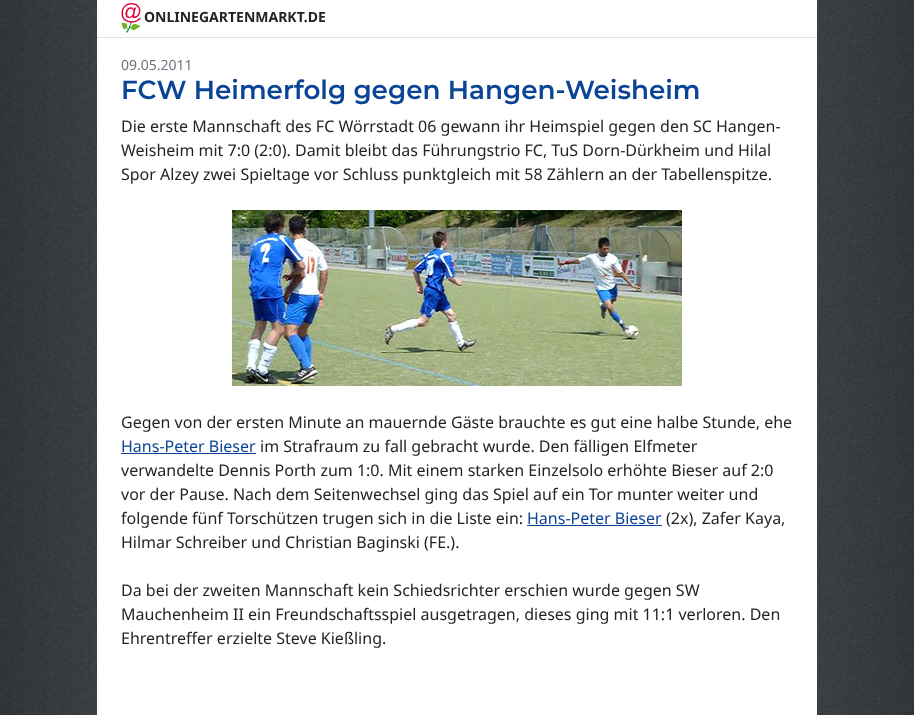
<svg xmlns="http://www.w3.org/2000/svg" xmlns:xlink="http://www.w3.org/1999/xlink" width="914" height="715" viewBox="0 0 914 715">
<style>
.cls-1{font:bold 14px Noto Sans;fill:#212529}
.cls-2{font:14px Noto Sans;fill:#6c757d}
.cls-3{font:600 26.25px Montserrat;fill:#0a4595}
.cls-4{font:16px Noto Sans;fill:#212529}
.cls-5{font:16px Noto Sans;fill:#0a4595}
</style>
<rect width="100%" height="100%" fill="#ffffff"/>
<image xlink:href="image0.png" x="0" y="0" width="914" height="715"/>
<rect fill="#ffffff" x="97" y="0" width="720" height="37"/>
<rect fill="#dee2e6" x="97" y="37" width="720" height="1"/>
<image xlink:href="image1.png" x="121" y="3" width="20" height="30"/>
<rect fill="#ffffff" x="97" y="38" width="720" height="677"/>
<image xlink:href="image2.png" x="232" y="210" width="450" height="176"/>
<rect fill="#0a4595" x="121" y="453" width="135" height="1"/>
<rect fill="#0a4595" x="527" y="525" width="135" height="1"/>
<text class="cls-1" x="144" y="22">ONLINEGARTENMARKT.DE</text>
<text class="cls-2" x="121" y="70">09.05.2011</text>
<text class="cls-3" x="121" y="99">FCW Heimerfolg gegen Hangen-Weisheim</text>
<text class="cls-4"><tspan x="121" y="132">Die erste Mannschaft des FC Wörrstadt 06 gewann ihr Heimspiel gegen den SC Hangen-</tspan><tspan x="121" y="156">Weisheim mit 7:0 (2:0). Damit bleibt das Führungstrio FC, TuS Dorn-Dürkheim und Hilal</tspan><tspan x="121" y="180">Spor Alzey zwei Spieltage vor Schluss punktgleich mit 58 Zählern an der Tabellenspitze.</tspan></text>
<text class="cls-4" x="121" y="428">Gegen von der ersten Minute an mauernde Gäste brauchte es gut eine halbe Stunde, ehe</text>
<text class="cls-5" x="121" y="452">Hans-Peter Bieser</text>
<text class="cls-4" x="260" y="452">im Strafraum zu fall gebracht wurde. Den fälligen Elfmeter</text>
<text class="cls-4"><tspan x="121" y="476">verwandelte Dennis Porth zum 1:0. Mit einem starken Einzelsolo erhöhte Bieser auf 2:0</tspan><tspan x="121" y="500">vor der Pause. Nach dem Seitenwechsel ging das Spiel auf ein Tor munter weiter und</tspan><tspan x="121" y="524">folgende fünf Torschützen trugen sich in die Liste ein:</tspan></text>
<text class="cls-5" x="527" y="524">Hans-Peter Bieser</text>
<text class="cls-4" x="666" y="524">(2x), Zafer Kaya,</text>
<text class="cls-4" x="121" y="548">Hilmar Schreiber und Christian Baginski (FE.).</text>
<text class="cls-4"><tspan x="121" y="596">Da bei der zweiten Mannschaft kein Schiedsrichter erschien wurde gegen SW</tspan><tspan x="121" y="620">Mauchenheim II ein Freundschaftsspiel ausgetragen, dieses ging mit 11:1 verloren. Den</tspan><tspan x="121" y="644">Ehrentreffer erzielte Steve Kießling.</tspan></text>
</svg>
